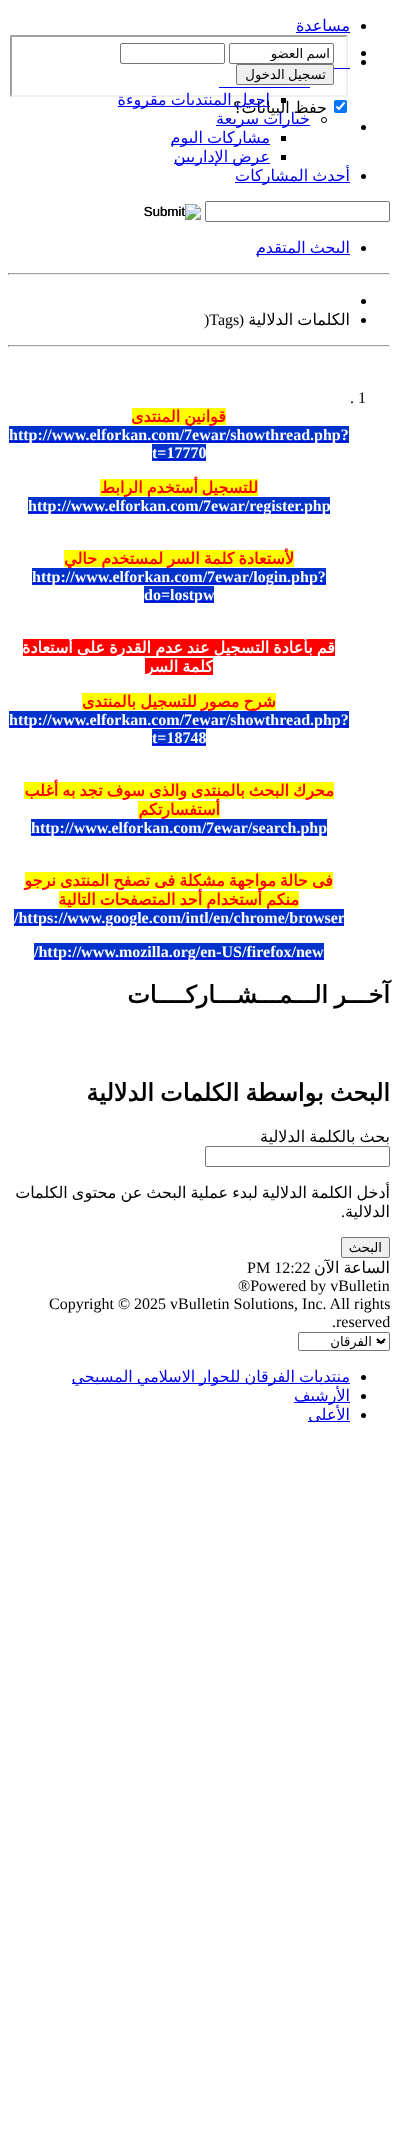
<svg xmlns="http://www.w3.org/2000/svg" xmlns:xlink="http://www.w3.org/1999/xlink" width="398" height="2130" viewBox="0 0 398 2130">
<style>
.cls-1{font:16px DejaVu Sans;direction:rtl;fill:#0000ee}
.cls-2{font:13.25px DejaVu Sans;direction:rtl;fill:#000000}
.cls-3{font:16px DejaVu Sans;direction:rtl;fill:#000000}
.cls-4{font:13.25px Liberation Sans;fill:#000000}
.cls-5{font:16px Liberation Serif;direction:rtl;fill:#000000}
.cls-6{font:16px Liberation Serif;fill:#000000}
.cls-7{font:bold 16px DejaVu Sans;direction:rtl;fill:#ff0000}
.cls-8{font:bold 16px Liberation Serif;fill:#ffffff}
.cls-9{font:bold 16px DejaVu Sans;direction:rtl;fill:#ffffff}
.cls-10{font:bold 24px DejaVu Sans;direction:rtl;fill:#000000}
.cls-11{font:13.25px Liberation Sans;direction:rtl;fill:#000000}
</style>
<defs>
<clipPath id="clip1"><rect x="233" y="46" width="97" height="15"/></clipPath>
</defs>
<rect width="100%" height="100%" fill="#ffffff"/>
<circle fill="#000000" cx="363.5" cy="26.5" r="2.5"/>
<rect fill="#0000ee" x="296" y="32" width="54" height="1"/>
<circle fill="#000000" cx="363.5" cy="53.5" r="2.5"/>
<path fill="#9f9f9f" d="M10 35H348L346 37H12Z"/>
<path fill="#efefef" d="M348 35V97L346 95V37Z"/>
<path fill="#efefef" d="M348 97H10L12 95H346Z"/>
<path fill="#9f9f9f" d="M10 97V35L12 37V95Z"/>
<rect fill="none" stroke="#767676" x="229.5" y="43.5" width="104" height="20" rx="1.5"/>
<rect fill="none" stroke="#767676" x="120.5" y="43.5" width="104" height="20" rx="1.5"/>
<rect fill="#efefef" stroke="#767676" x="236.5" y="64.5" width="97" height="20" rx="1.5"/>
<rect fill="#0075ff" x="334" y="100" width="13" height="13" rx="2"/>
<path fill="none" stroke="#ffffff" stroke-width="2.1" d="M336.5 106.5L339 109L344.5 102.5"/>
<circle fill="#000000" cx="363.5" cy="127.5" r="2.5"/>
<circle fill="#000000" cx="363.5" cy="62.5" r="2.5"/>
<rect fill="#0000ee" x="334" y="68" width="16" height="1"/>
<rect fill="#0000ee" x="219" y="87" width="91" height="1"/>
<rect fill="#000000" x="281" y="98" width="5" height="5"/>
<circle fill="none" stroke="#000000" cx="324" cy="120" r="2.5"/>
<rect fill="#0000ee" x="216" y="125" width="94" height="1"/>
<rect fill="#000000" x="281" y="136" width="5" height="5"/>
<rect fill="#0000ee" x="171" y="144" width="99" height="1"/>
<rect fill="#000000" x="281" y="155" width="5" height="5"/>
<rect fill="#0000ee" x="174" y="163" width="96" height="1"/>
<circle fill="#000000" cx="363.5" cy="176.5" r="2.5"/>
<rect fill="#0000ee" x="235" y="182" width="115" height="1"/>
<rect fill="none" stroke="#767676" x="205.5" y="201.5" width="184" height="20" rx="1.5"/>
<image xlink:href="image0.png" x="144" y="204" width="57" height="16"/>
<circle fill="#000000" cx="363.5" cy="248.5" r="2.5"/>
<rect fill="#0000ee" x="256" y="254" width="94" height="1"/>
<rect fill="#9f9f9f" x="8" y="273" width="382" height="1"/>
<rect fill="#eeeeee" x="389" y="273" width="1" height="2"/>
<rect fill="#eeeeee" x="8" y="274" width="382" height="1"/>
<rect fill="#9f9f9f" x="8" y="273" width="1" height="2"/>
<circle fill="#000000" cx="363.5" cy="301.5" r="2.5"/>
<circle fill="#000000" cx="363.5" cy="320.5" r="2.5"/>
<rect fill="#9f9f9f" x="8" y="345" width="382" height="1"/>
<rect fill="#eeeeee" x="389" y="345" width="1" height="2"/>
<rect fill="#eeeeee" x="8" y="346" width="382" height="1"/>
<rect fill="#9f9f9f" x="8" y="345" width="1" height="2"/>
<rect fill="#ffff00" x="132" y="408" width="94" height="17"/>
<rect fill="#0033cc" x="9" y="426" width="340" height="17"/>
<rect fill="#0000ee" x="9" y="441" width="340" height="1"/>
<rect fill="#0033cc" x="152" y="444" width="54" height="17"/>
<rect fill="#0000ee" x="152" y="459" width="54" height="1"/>
<rect fill="#ffff00" x="100" y="479" width="158" height="17"/>
<rect fill="#0033cc" x="28" y="497" width="302" height="17"/>
<rect fill="#0000ee" x="28" y="512" width="302" height="1"/>
<rect fill="#ffff00" x="64" y="550" width="230" height="17"/>
<rect fill="#0033cc" x="32" y="568" width="294" height="17"/>
<rect fill="#0000ee" x="32" y="583" width="294" height="1"/>
<rect fill="#0033cc" x="144" y="586" width="70" height="17"/>
<rect fill="#0000ee" x="144" y="601" width="70" height="1"/>
<rect fill="#ff0000" x="23" y="639" width="312" height="17"/>
<rect fill="#ff0000" x="145" y="658" width="68" height="17"/>
<rect fill="#ffff00" x="82" y="693" width="194" height="17"/>
<rect fill="#0033cc" x="9" y="711" width="340" height="17"/>
<rect fill="#0000ee" x="9" y="726" width="340" height="1"/>
<rect fill="#0033cc" x="152" y="729" width="54" height="17"/>
<rect fill="#0000ee" x="152" y="744" width="54" height="1"/>
<rect fill="#ffff00" x="24" y="782" width="310" height="17"/>
<rect fill="#ffff00" x="138" y="801" width="82" height="17"/>
<rect fill="#0033cc" x="31" y="819" width="296" height="17"/>
<rect fill="#0000ee" x="31" y="834" width="296" height="1"/>
<rect fill="#ffff00" x="25" y="872" width="308" height="17"/>
<rect fill="#ffff00" x="59" y="891" width="240" height="17"/>
<rect fill="#0033cc" x="14" y="909" width="330" height="17"/>
<rect fill="#0000ee" x="14" y="924" width="330" height="1"/>
<rect fill="#0033cc" x="34" y="943" width="290" height="17"/>
<rect fill="#0000ee" x="34" y="958" width="290" height="1"/>
<rect fill="none" stroke="#767676" x="205.5" y="1146.5" width="184" height="20" rx="1.5"/>
<rect fill="#efefef" stroke="#767676" x="341.5" y="1237.5" width="48" height="20" rx="1.5"/>
<rect fill="none" stroke="#767676" x="298.5" y="1332.5" width="91" height="18" rx="1.5"/>
<path fill="none" stroke="#000000" stroke-width="2" d="M377 1339L381 1343L385 1339"/>
<circle fill="#000000" cx="363.5" cy="1377.5" r="2.5"/>
<rect fill="#0000ee" x="72" y="1383" width="278" height="1"/>
<circle fill="#000000" cx="363.5" cy="1396.5" r="2.5"/>
<rect fill="#0000ee" x="294" y="1402" width="56" height="1"/>
<circle fill="#000000" cx="363.5" cy="1415.5" r="2.5"/>
<rect fill="#0000ee" x="308" y="1421" width="42" height="1"/>
<text class="cls-1" x="350" y="31">مساعدة</text>
<g clip-path="url(#clip1)">
<text class="cls-2" x="330" y="58" word-spacing="-1">اسم العضو</text>
</g>
<text class="cls-2" x="326" y="79" word-spacing="-1">تسجيل الدخول</text>
<text class="cls-3" x="327" y="113" word-spacing="-1">حفظ البيانات؟</text>
<rect fill="#0000ee" x="118" y="106" width="152" height="1"/>
<text class="cls-1" x="270" y="105" word-spacing="-1">اجعل المنتديات مقروءة</text>
<text class="cls-1" x="310" y="124" word-spacing="-1">خيارات سريعة</text>
<text class="cls-1"><tspan x="270" y="143" word-spacing="-1">مشاركات اليوم</tspan><tspan x="270" y="162" word-spacing="-1">عرض الإداريين</tspan></text>
<text class="cls-1" x="350" y="181" word-spacing="-1">أحدث المشاركات</text>
<text class="cls-4" x="144" y="216">Submit</text>
<text class="cls-1" x="350" y="253" word-spacing="-1">البحث المتقدم</text>
<text class="cls-3" x="350" y="325" word-spacing="-1">الكلمات الدلالية</text>
<text class="cls-5" x="244" y="325">(</text>
<text class="cls-6" x="204" y="325">)Tags</text>
<text class="cls-6" x="350" y="403">. 1</text>
<text class="cls-7" x="226" y="422" word-spacing="-1">قوانين المنتدى</text>
<text class="cls-8" x="9" y="440">http://www.elforkan.com/7ewar/showthread.php?</text>
<text class="cls-8" x="152" y="458">t=17770</text>
<text class="cls-7" x="258" y="493">للتسجيل</text>
<text class="cls-7" x="198" y="493" word-spacing="-1">أستخدم الرابط</text>
<text class="cls-8" x="28" y="511">http://www.elforkan.com/7ewar/register.php</text>
<text class="cls-7" x="294" y="564" word-spacing="-1">لأستعادة كلمة السر</text>
<text class="cls-7" x="163" y="564" word-spacing="-1">لمستخدم حالي</text>
<text class="cls-8" x="32" y="582">http://www.elforkan.com/7ewar/login.php?</text>
<text class="cls-8" x="144" y="600">do=lostpw</text>
<text class="cls-9" x="335" y="653" word-spacing="-1">قم بأعادة التسجيل عند</text>
<text class="cls-9" x="183" y="653" word-spacing="-1">عدم القدرة على أستعادة</text>
<text class="cls-9" x="213" y="672" word-spacing="-1">كلمة السر</text>
<text class="cls-7" x="276" y="707" word-spacing="-1">شرح مصور للتسجيل</text>
<text class="cls-7" x="136" y="707">بالمنتدى</text>
<text class="cls-8" x="9" y="725">http://www.elforkan.com/7ewar/showthread.php?</text>
<text class="cls-8" x="152" y="743">t=18748</text>
<text class="cls-7" x="334" y="796" word-spacing="-1">محرك البحث بالمنتدى</text>
<text class="cls-7" x="187" y="796" word-spacing="-1">والذى سوف تجد به أغلب</text>
<text class="cls-7" x="220" y="815">أستفسارتكم</text>
<text class="cls-8" x="31" y="833">http://www.elforkan.com/7ewar/search.php</text>
<text class="cls-7" x="333" y="886" word-spacing="-1">فى حالة</text>
<text class="cls-7" x="276" y="886" word-spacing="-1">مواجهة مشكلة فى تصفح المنتدى نرجو</text>
<text class="cls-7" x="299" y="905" word-spacing="-1">منكم أستخدام أحد المتصفحات التالية</text>
<text class="cls-8" x="14" y="923">/https://www.google.com/intl/en/chrome/browser</text>
<text class="cls-8" x="34" y="957">/http://www.mozilla.org/en-US/firefox/new</text>
<text class="cls-10" x="390" y="1003" word-spacing="-1.5">آخـــر الـــمـــشـــاركــــات</text>
<text class="cls-10" x="390" y="1101" word-spacing="-1.5">البحث بواسطة الكلمات الدلالية</text>
<text class="cls-3" x="390" y="1142" word-spacing="-1">بحث بالكلمة الدلالية</text>
<text class="cls-3"><tspan x="390" y="1198" word-spacing="-1">أدخل الكلمة الدلالية لبدء عملية البحث عن محتوى الكلمات</tspan><tspan x="390" y="1217">الدلالية</tspan></text>
<text class="cls-5" x="345" y="1217">.</text>
<text class="cls-2" x="382" y="1252">البحث</text>
<text class="cls-3" x="390" y="1273" word-spacing="-1">الساعة الآن</text>
<text class="cls-6" x="247" y="1273">PM 12:22</text>
<text class="cls-6" x="238" y="1291">®Powered by vBulletin</text>
<text class="cls-6" x="49" y="1309">Copyright © 2025 vBulletin Solutions, Inc. All rights</text>
<text class="cls-6" x="332" y="1327">.reserved</text>
<text class="cls-11" x="385" y="1346">--</text>
<text class="cls-2" x="372" y="1346">الفرقان</text>
<text class="cls-1"><tspan x="350" y="1382" word-spacing="-1">منتديات الفرقان للحوار الاسلامي المسيحي</tspan><tspan x="350" y="1401">الأرشيف</tspan><tspan x="350" y="1420">الأعلى</tspan></text>
</svg>
